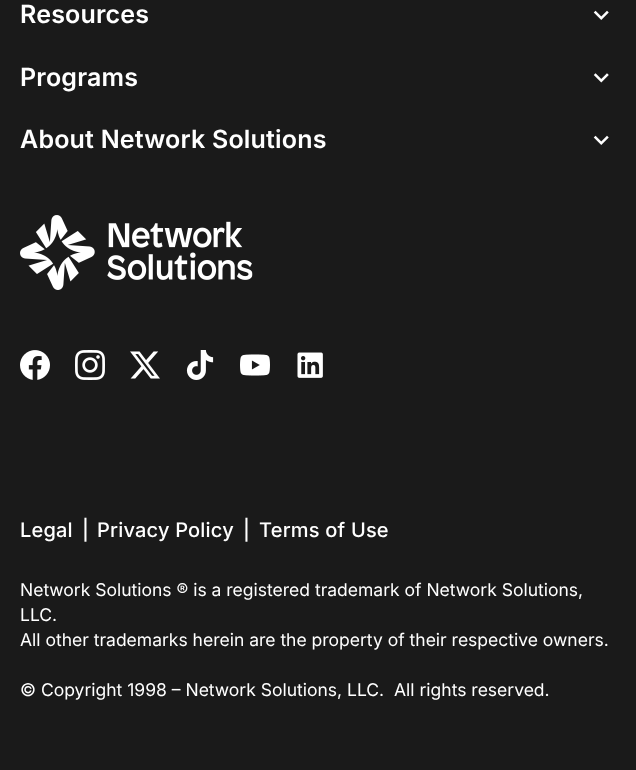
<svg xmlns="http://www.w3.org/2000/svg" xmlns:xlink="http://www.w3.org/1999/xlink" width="636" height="770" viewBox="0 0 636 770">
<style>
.cls-1{font:600 25px Inter;letter-spacing:0.2px;fill:#ffffff}
.cls-2{font:500 20px Inter;letter-spacing:0.2px;fill:#ffffff}
.cls-3{font:17.5px Inter;fill:#ffffff}
</style>
<rect width="100%" height="100%" fill="#1a1a1a"/>
<image xlink:href="image0.png" x="593" y="10" width="16" height="10"/>
<image xlink:href="image1.png" x="593" y="73" width="16" height="10"/>
<image xlink:href="image0.png" x="593" y="135" width="16" height="10"/>
<image xlink:href="image2.png" x="20" y="215" width="233" height="75"/>
<image xlink:href="image3.png" x="20" y="350" width="30" height="30"/>
<image xlink:href="image4.png" x="75" y="350" width="30" height="30"/>
<image xlink:href="image5.png" x="130" y="351" width="30" height="28"/>
<image xlink:href="image6.png" x="186" y="350" width="28" height="30"/>
<image xlink:href="image7.png" x="240" y="354" width="30" height="22"/>
<image xlink:href="image8.png" x="297" y="352" width="26" height="26"/>
<text class="cls-1" x="20" y="23">Resources</text>
<text class="cls-1" x="20" y="86">Programs</text>
<text class="cls-1" x="20" y="148">About Network Solutions</text>
<text class="cls-2" x="20" y="537">Legal</text>
<text class="cls-2" x="82" y="537">|</text>
<text class="cls-2" x="97" y="537">Privacy Policy</text>
<text class="cls-2" x="243" y="537">|</text>
<text class="cls-2" x="259" y="537">Terms of Use</text>
<text class="cls-3"><tspan x="20" y="596">Network Solutions ® is a registered trademark of Network Solutions,</tspan><tspan x="20" y="621">LLC.</tspan><tspan x="20" y="646">All other trademarks herein are the property of their respective owners.</tspan></text>
<text class="cls-3" xml:space="preserve" x="20" y="696">© Copyright 1998 – Network Solutions, LLC.  All rights reserved.</text>
</svg>
